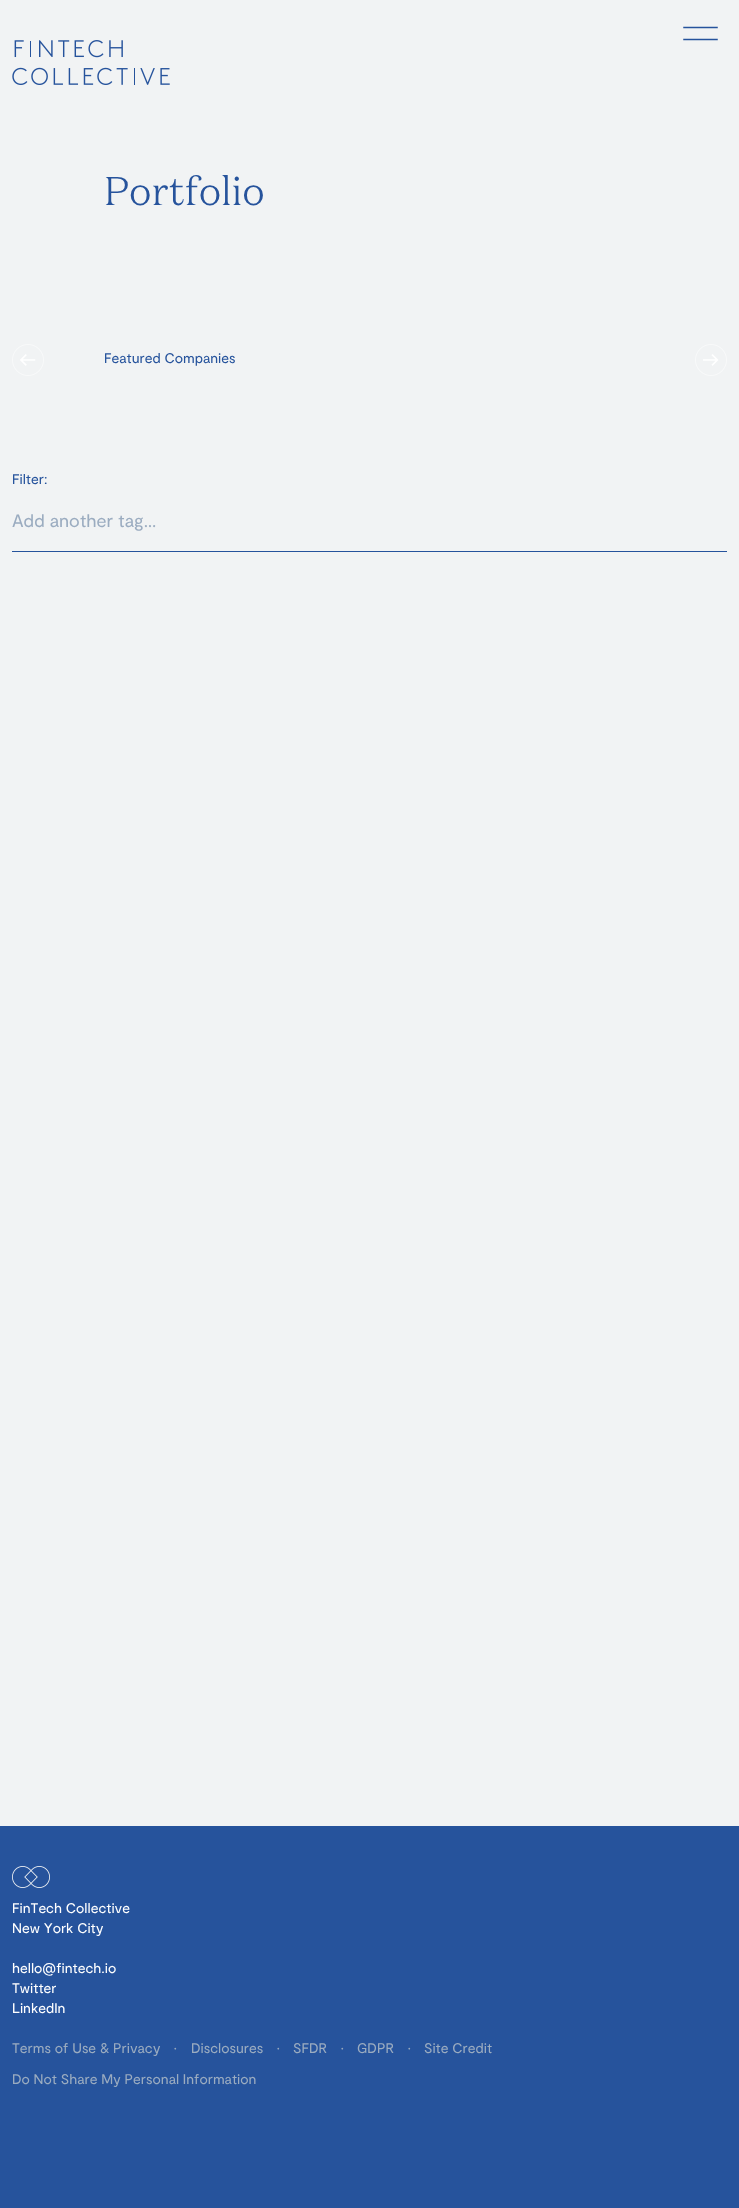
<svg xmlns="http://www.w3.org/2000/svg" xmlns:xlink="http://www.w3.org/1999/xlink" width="739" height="2208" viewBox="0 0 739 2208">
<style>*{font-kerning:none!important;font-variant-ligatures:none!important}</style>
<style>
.cls-1{font:300 40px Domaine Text;fill:#26539c}
.cls-2{font:14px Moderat;fill:#26539c}
.cls-3{font:18px Moderat;fill:#9bacc0}
.cls-4{font:14px Moderat;fill:#ffffff}
.cls-5{font:14px Moderat;fill:#9bacc0}
</style>
<rect width="100%" height="100%" fill="#26539c"/>
<rect fill="#f1f3f4" x="0" y="0" width="739" height="1826"/>
<path fill="none" stroke="#26539c" stroke-width="1.5" stroke-linecap="square" d="M684 27.5H717M684 39.5H717"/>
<image xlink:href="image0.png" x="12" y="40" width="158" height="45"/>
<image xlink:href="image1.png" x="12" y="344" width="32" height="32"/>
<image xlink:href="image2.png" x="695" y="344" width="32" height="32"/>
<rect fill="#26539c" x="12" y="551" width="715" height="1"/>
<image xlink:href="image3.png" x="12" y="1866" width="38" height="22"/>
<text class="cls-1" x="104" y="205">Portfolio</text>
<text class="cls-2" x="104" y="363">Featured Companies</text>
<text class="cls-2" x="12" y="484">Filter:</text>
<text class="cls-3" x="12" y="527">Add another tag…</text>
<text class="cls-4"><tspan x="12" y="1913">FinTech Collective</tspan><tspan x="12" y="1933">New York City</tspan></text>
<text class="cls-4"><tspan x="12" y="1973">hello@fintech.io</tspan><tspan x="12" y="1993">Twitter</tspan><tspan x="12" y="2013">LinkedIn</tspan></text>
<text class="cls-5" x="12" y="2053">Terms of Use &amp; Privacy</text>
<text class="cls-5" x="174" y="2053">•</text>
<text class="cls-5" x="191" y="2053">Disclosures</text>
<text class="cls-5" x="277" y="2053">•</text>
<text class="cls-5" x="293" y="2053">SFDR</text>
<text class="cls-5" x="341" y="2053">•</text>
<text class="cls-5" x="357" y="2053">GDPR</text>
<text class="cls-5" x="408" y="2053">•</text>
<text class="cls-5" x="424" y="2053">Site Credit</text>
<text class="cls-5" x="12" y="2084">Do Not Share My Personal Information</text>
</svg>
